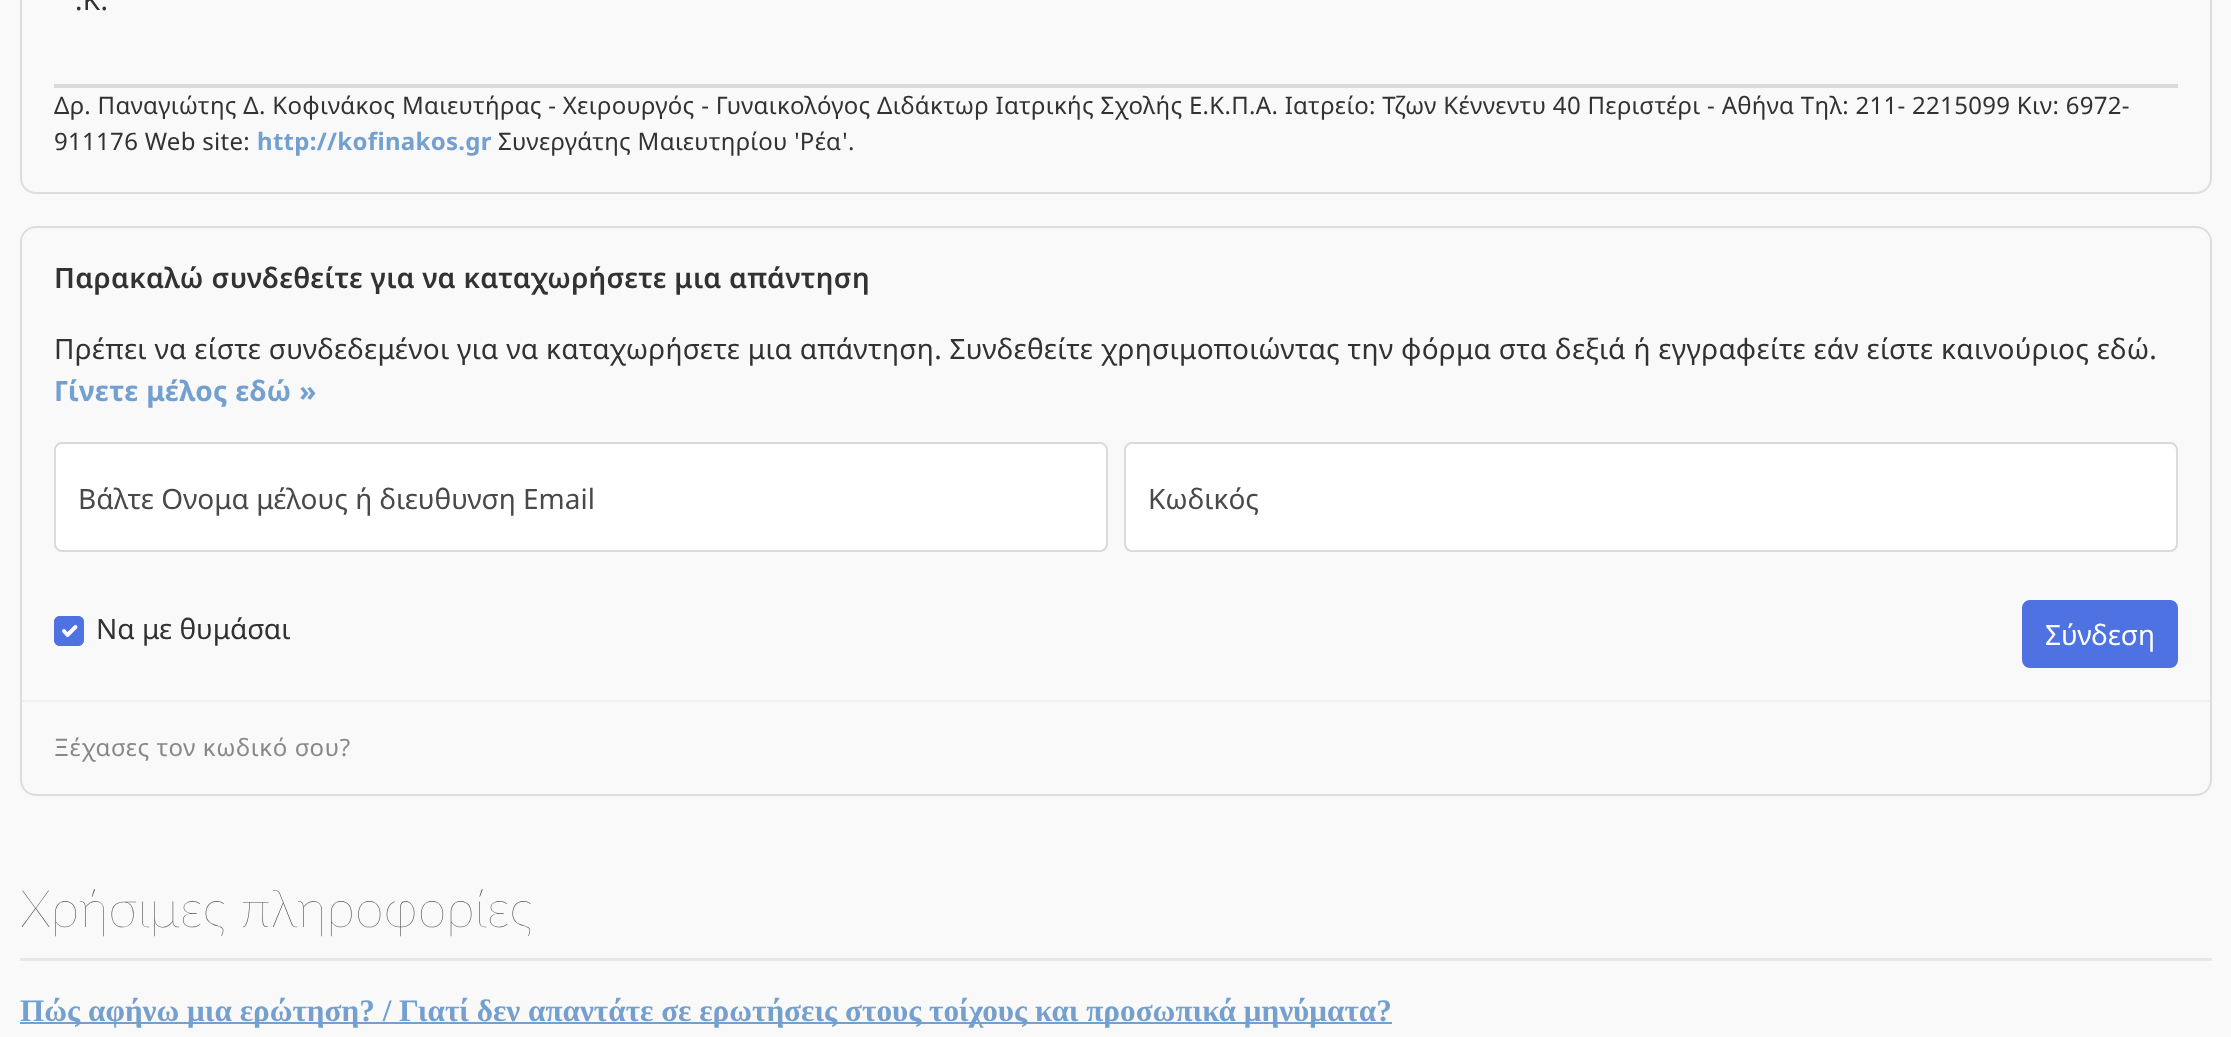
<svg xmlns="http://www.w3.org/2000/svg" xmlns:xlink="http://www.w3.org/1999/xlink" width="2231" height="1037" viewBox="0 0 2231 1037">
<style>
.cls-1{font:28px Noto Sans;letter-spacing:0.3px;fill:#323232}
.cls-2{font:24px Noto Sans;letter-spacing:0.3px;fill:#323232}
.cls-3{font:bold 24px Noto Sans;letter-spacing:0.3px;fill:#73a0cf}
.cls-4{font:600 28px Noto Sans;letter-spacing:0.3px;fill:#323232}
.cls-5{font:bold 28px Noto Sans;letter-spacing:0.3px;fill:#73a0cf}
.cls-6{font:28px Noto Sans;fill:#494949}
.cls-7{font:28px Noto Sans;fill:#323232}
.cls-8{font:28px Noto Sans;fill:#ffffff}
.cls-9{font:24px Noto Sans;letter-spacing:0.6px;fill:#888888}
.cls-10{font:200 52px Lato;fill:#525252}
.cls-11{font:bold 31.2px Liberation Serif;fill:#73a0cf}
</style>
<rect width="100%" height="100%" fill="#f9f9f9"/>
<rect fill="none" stroke="#dddddd" stroke-width="2" x="21" y="-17" width="2190" height="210" rx="15"/>
<rect fill="#d9d9de" x="54" y="84" width="2124" height="4"/>
<rect fill="none" stroke="#dddddd" stroke-width="2" x="21" y="227" width="2190" height="568" rx="15"/>
<rect fill="#ffffff" stroke="#d9d9de" stroke-width="2" x="55" y="443" width="1052" height="108" rx="7"/>
<rect fill="#ffffff" stroke="#d9d9de" stroke-width="2" x="1125" y="443" width="1052" height="108" rx="7"/>
<rect fill="#4e72e2" x="54" y="616" width="30" height="30" rx="6"/>
<path fill="none" stroke="#ffffff" stroke-width="3.9" stroke-linecap="round" stroke-linejoin="round" d="M64 631L67.5 635L75.5 627"/>
<rect fill="none" stroke="#4e72e2" stroke-width="2" x="55" y="617" width="28" height="28" rx="5"/>
<rect fill="#4e72e2" stroke="#4e72e2" stroke-width="2" x="2023" y="601" width="154" height="66" rx="7"/>
<rect fill="#f0f0f1" x="22" y="700" width="2188" height="2"/>
<rect fill="#e8e8e8" x="20" y="958" width="2192" height="3"/>
<rect fill="#73a0cf" x="20" y="1022" width="1372" height="2"/>
<text class="cls-1" x="75" y="10">.Κ.</text>
<text class="cls-2"><tspan x="54" y="114">Δρ. Παναγιώτης Δ. Κοφινάκος Μαιευτήρας - Χειρουργός - Γυναικολόγος Διδάκτωρ Ιατρικής Σχολής Ε.Κ.Π.Α. Ιατρείο: Τζων Κέννεντυ 40 Περιστέρι - Αθήνα Τηλ: 211- 2215099 Κιν: 6972-</tspan><tspan x="54" y="150">911176 Web site:</tspan></text>
<text class="cls-3" x="257" y="150">http://kofinakos.gr</text>
<text class="cls-2" x="498" y="150">Συνεργάτης Μαιευτηρίου 'Ρέα'.</text>
<text class="cls-4" x="54" y="288">Παρακαλώ συνδεθείτε για να καταχωρήσετε μια απάντηση</text>
<text class="cls-1" x="54" y="359">Πρέπει να είστε συνδεδεμένοι για να καταχωρήσετε μια απάντηση. Συνδεθείτε χρησιμοποιώντας την φόρμα στα δεξιά ή εγγραφείτε εάν είστε καινούριος εδώ.</text>
<text class="cls-5" x="54" y="401">Γίνετε μέλος εδώ »</text>
<text class="cls-6" x="78" y="509">Βάλτε Ονομα μέλους ή διευθυνση Email</text>
<text class="cls-6" x="1148" y="509">Κωδικός</text>
<text class="cls-7" x="96" y="639">Να με θυμάσαι</text>
<text class="cls-8" x="2045" y="645">Σύνδεση</text>
<text class="cls-9" x="54" y="756">Ξέχασες τον κωδικό σου?</text>
<text class="cls-10" x="20" y="927">Χρήσιμες πληροφορίες</text>
<text class="cls-11" x="20" y="1021">Πώς αφήνω μια ερώτηση? / Γιατί δεν απαντάτε σε ερωτήσεις στους τοίχους και προσωπικά μηνύματα?</text>
</svg>
